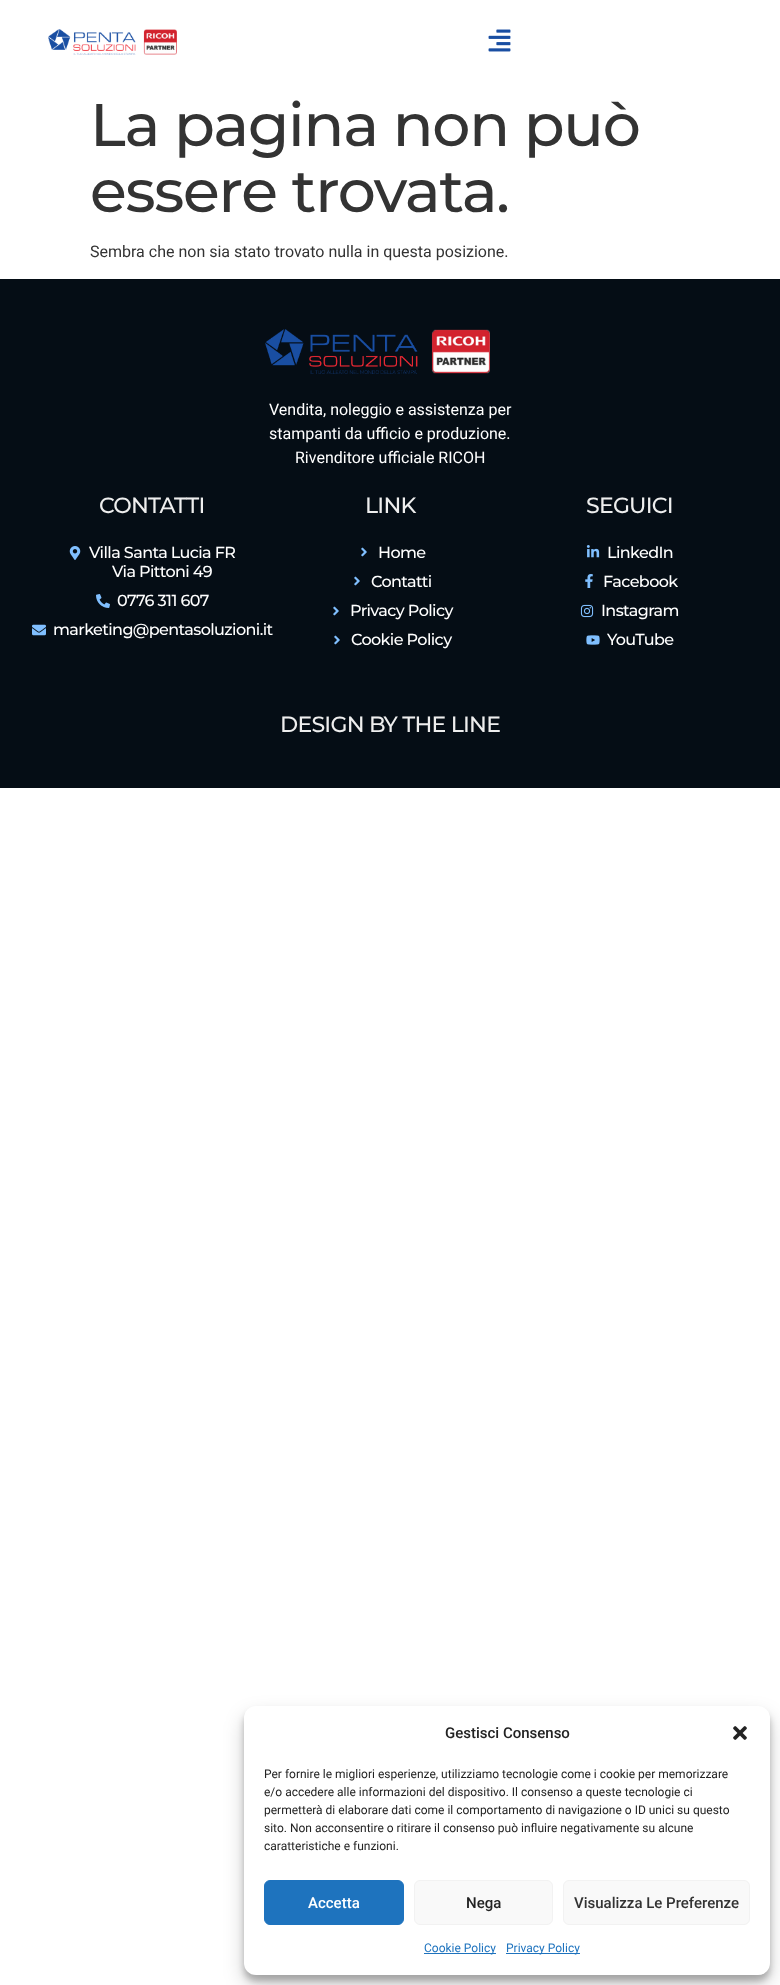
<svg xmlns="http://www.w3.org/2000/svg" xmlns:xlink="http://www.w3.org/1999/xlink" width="780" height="1985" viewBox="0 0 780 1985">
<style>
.cls-1{font:500 60px Montserrat;letter-spacing:-1.25px;fill:#333333}
.cls-2{font:16px Roboto;fill:#333333}
.cls-3{font:16px Roboto;fill:#ffffff}
.cls-4{font:500 22px Montserrat;letter-spacing:-0.75px;fill:#eeeeee}
.cls-5{font:500 16px Montserrat;letter-spacing:-0.6px;fill:#ffffff}
.cls-6{font:500 15px Roboto;fill:#222222}
.cls-7{font:12px Roboto;fill:#222222}
.cls-8{font:500 15px Roboto;fill:#ffffff}
.cls-9{font:500 15px Roboto;fill:#333333}
.cls-10{font:12px Roboto;fill:#1e73be}
</style>
<rect width="100%" height="100%" fill="#ffffff"/>
<image xlink:href="image0.png" x="48" y="29" width="129" height="26"/>
<image xlink:href="image1.png" x="488" y="29" width="23" height="23"/>
<rect fill="#050d15" x="0" y="279" width="780" height="509"/>
<image xlink:href="image2.png" x="265" y="329" width="225" height="45"/>
<image xlink:href="image3.png" x="69" y="546" width="12" height="14"/>
<image xlink:href="image4.png" x="96" y="594" width="14" height="14"/>
<image xlink:href="image5.png" x="32" y="624" width="14" height="12"/>
<image xlink:href="image6.png" x="361" y="547" width="6" height="10"/>
<image xlink:href="image6.png" x="354" y="576" width="6" height="10"/>
<image xlink:href="image6.png" x="333" y="606" width="6" height="10"/>
<image xlink:href="image6.png" x="334" y="635" width="6" height="10"/>
<image xlink:href="image7.png" x="586" y="545" width="14" height="13"/>
<image xlink:href="image8.png" x="585" y="574" width="8" height="14"/>
<image xlink:href="image9.png" x="580" y="604" width="14" height="14"/>
<image xlink:href="image10.png" x="586" y="635" width="14" height="10"/>
<rect fill="#000000" fill-opacity="0.23" filter="blur(3px)" x="244" y="1712" width="526" height="269" rx="12"/>
<rect fill="#000000" fill-opacity="0.19" filter="blur(10px)" x="244" y="1716" width="526" height="269" rx="12"/>
<rect fill="#ffffff" x="244" y="1706" width="526" height="269" rx="12"/>
<image xlink:href="image11.png" x="733" y="1726" width="14" height="14"/>
<rect fill="#1e73be" stroke="#1e73be" x="264.5" y="1880.5" width="139" height="44" rx="5.5"/>
<rect fill="#f9f9f9" stroke="#f2f2f2" x="414.5" y="1880.5" width="138" height="44" rx="5.5"/>
<rect fill="#f9f9f9" stroke="#f2f2f2" x="563.5" y="1880.5" width="186" height="44" rx="5.5"/>
<rect fill="#1e73be" x="424" y="1953" width="72" height="1"/>
<rect fill="#1e73be" x="506" y="1953" width="74" height="1"/>
<text class="cls-1"><tspan x="90" y="146">La pagina non può</tspan><tspan x="90" y="212">essere trovata.</tspan></text>
<text class="cls-2" x="90" y="257">Sembra che non sia stato trovato nulla in questa posizione.</text>
<text class="cls-3"><tspan x="269" y="415">Vendita, noleggio e assistenza per</tspan><tspan x="269" y="439">stampanti da ufficio e produzione.</tspan></text>
<text class="cls-3" x="295" y="463">Rivenditore ufficiale RICOH</text>
<text class="cls-4" x="99" y="513">CONTATTI</text>
<text class="cls-5" x="89" y="558">Villa Santa Lucia FR</text>
<text class="cls-5" x="112" y="577">Via Pittoni 49</text>
<text class="cls-5" x="117" y="606">0776 311 607</text>
<text class="cls-5" x="53" y="635">marketing@pentasoluzioni.it</text>
<text class="cls-4" x="365" y="513">LINK</text>
<text class="cls-5" x="378" y="558">Home</text>
<text class="cls-5" x="371" y="587">Contatti</text>
<text class="cls-5" x="350" y="616">Privacy Policy</text>
<text class="cls-5" x="351" y="645">Cookie Policy</text>
<text class="cls-4" x="586" y="513">SEGUICI</text>
<text class="cls-5" x="607" y="558">LinkedIn</text>
<text class="cls-5" x="603" y="587">Facebook</text>
<text class="cls-5" x="601" y="616">Instagram</text>
<text class="cls-5" x="607" y="645">YouTube</text>
<text class="cls-4" x="280" y="732">DESIGN BY THE LINE</text>
<text class="cls-6" x="445" y="1738">Gestisci Consenso</text>
<text class="cls-7"><tspan x="264" y="1778">Per fornire le migliori esperienze, utilizziamo tecnologie come i cookie per memorizzare</tspan><tspan x="264" y="1796">e/o accedere alle informazioni del dispositivo. Il consenso a queste tecnologie ci</tspan><tspan x="264" y="1814">permetterà di elaborare dati come il comportamento di navigazione o ID unici su questo</tspan><tspan x="264" y="1832">sito. Non acconsentire o ritirare il consenso può influire negativamente su alcune</tspan><tspan x="264" y="1850">caratteristiche e funzioni.</tspan></text>
<text class="cls-8" x="308" y="1908">Accetta</text>
<text class="cls-6" x="466" y="1908">Nega</text>
<text class="cls-9" x="574" y="1908">Visualizza Le Preferenze</text>
<text class="cls-10" x="424" y="1952">Cookie Policy</text>
<text class="cls-10" x="506" y="1952">Privacy Policy</text>
</svg>
